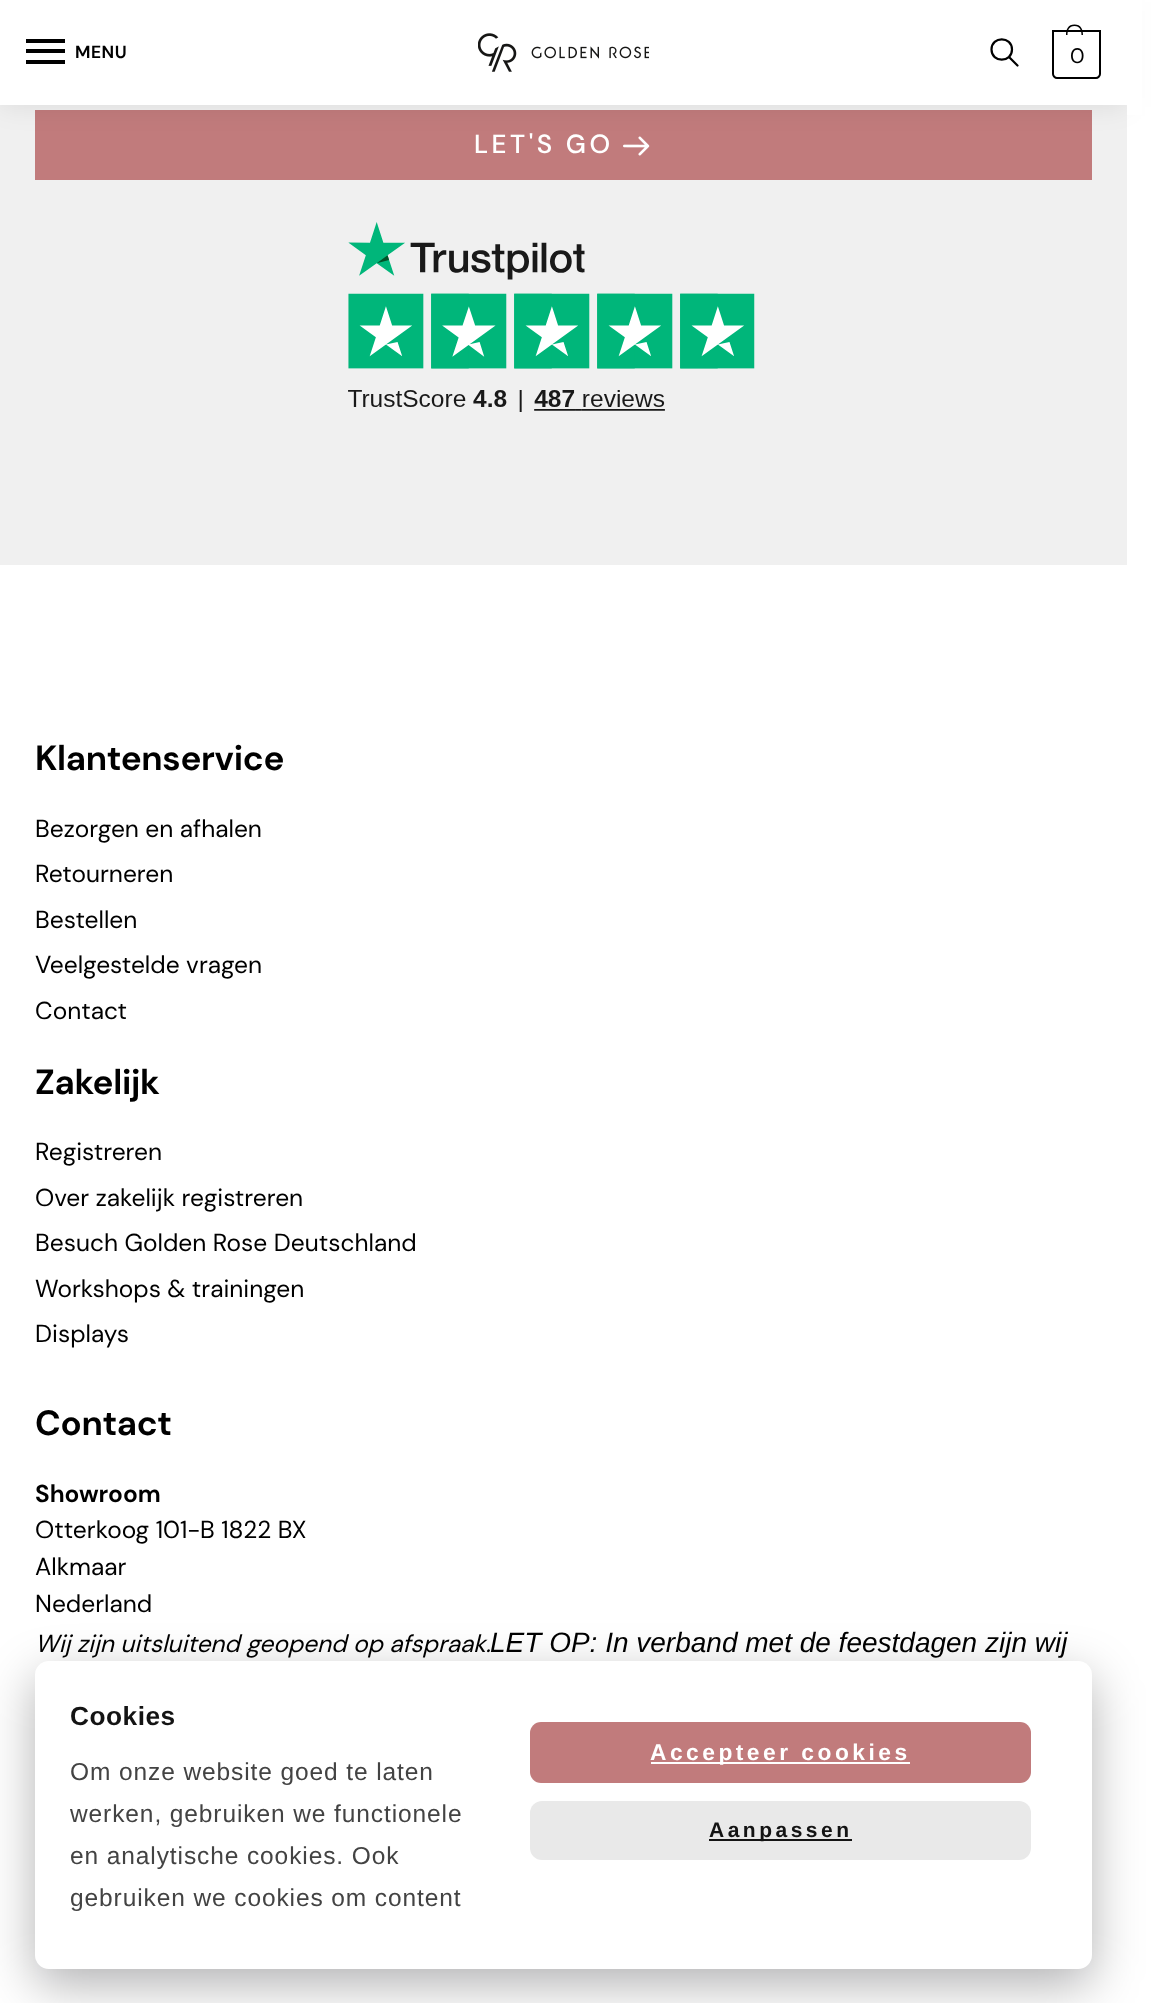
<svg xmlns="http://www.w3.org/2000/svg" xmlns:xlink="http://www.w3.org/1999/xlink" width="1153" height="2003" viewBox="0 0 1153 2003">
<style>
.cls-1{font:bold 17.5px DM Sans;letter-spacing:0.5px;fill:#000000}
.cls-2{font:21px DM Sans;letter-spacing:-1px;fill:#000000}
.cls-3{font:500 26.25px DM Sans;letter-spacing:3.5px;fill:#ffffff}
.cls-4{font:bold 35px DM Sans;letter-spacing:-0.3px;fill:#000000}
.cls-5{font:24.5px DM Sans;fill:#000000}
.cls-6{font:bold 24.5px DM Sans;fill:#000000}
.cls-7{font:italic 24.5px DM Sans;fill:#000000}
.cls-8{font:italic 28px Liberation Sans;fill:#000000}
.cls-9{font:bold 26.25px Liberation Sans;letter-spacing:0.5px;fill:#141414}
.cls-10{font:24.5px Liberation Sans;letter-spacing:0.9px;fill:#434343}
.cls-11{font:bold 22.75px Liberation Sans;letter-spacing:3.5px;fill:#ffffff}
.cls-12{font:bold 21px Liberation Sans;letter-spacing:3.5px;fill:#141414}
</style>
<rect width="100%" height="100%" fill="#ffffff"/>
<rect fill="#f0f0f0" x="0" y="105" width="1127" height="460"/>
<rect fill="#c17b7c" x="35" y="110" width="1057" height="70"/>
<image xlink:href="image1.png" x="623" y="136" width="27" height="20"/>
<rect fill="#000000" fill-opacity="0.08" filter="blur(13px)" x="0" y="2" width="1127" height="105"/>
<rect fill="#ffffff" x="0" y="0" width="1127" height="105"/>
<rect fill="#000000" x="26" y="39" width="39" height="4"/>
<rect fill="#000000" x="26" y="49" width="39" height="4"/>
<rect fill="#000000" x="26" y="60" width="39" height="4"/>
<image xlink:href="image0.png" x="478" y="33" width="171" height="39"/>
<path fill="none" stroke="#000000" stroke-width="2.2" stroke-linecap="round" stroke-linejoin="round" d="M1017.5 65.5L1009 57M1012 49.5C1012 63 991.5 63 991.5 49.5C991.5 36 1012 36 1012 49.5Z"/>
<path fill="none" stroke="#000000" stroke-width="2" d="M1053 31H1100V74C1100 76 1098 78 1096 78H1057C1055 78 1053 76 1053 74Z"/>
<path fill="#000000" fill-rule="evenodd" d="M1074.5 24.5C1081 24.5 1083 29.5 1083 35H1066C1066 29.5 1068 24.5 1074.5 24.5ZM1074.5 26C1080 26 1081.5 30.5 1081.5 35H1067.5C1067.5 30.5 1069 26 1074.5 26Z"/>
<rect fill="#ffffff" x="1127" y="0" width="15" height="115"/>
<image xlink:href="image2.png" x="348" y="222" width="407" height="190"/>
<rect fill="#000002" fill-opacity="0.3" filter="blur(24.5px)" x="35" y="1677" width="1057" height="308" rx="14"/>
<rect fill="#ffffff" x="35" y="1661" width="1057" height="308" rx="14"/>
<rect fill="#c17b7c" x="530" y="1722" width="501" height="61" rx="11"/>
<rect fill="#ffffff" x="651" y="1762" width="259" height="2"/>
<rect fill="#e9e9e9" x="530" y="1801" width="501" height="59" rx="12"/>
<rect fill="#141414" x="709" y="1839" width="143" height="2"/>
<text class="cls-1" x="75" y="58">MENU</text>
<text class="cls-2" x="1070" y="63">0</text>
<text class="cls-3" x="474" y="153">LET'S GO</text>
<text class="cls-4" x="35" y="770">Klantenservice</text>
<text class="cls-5"><tspan x="35" y="837">Bezorgen en afhalen</tspan><tspan x="35" y="882">Retourneren</tspan><tspan x="35" y="928">Bestellen</tspan><tspan x="35" y="973">Veelgestelde vragen</tspan><tspan x="35" y="1019">Contact</tspan></text>
<text class="cls-4" x="35" y="1094">Zakelijk</text>
<text class="cls-5"><tspan x="35" y="1160">Registreren</tspan><tspan x="35" y="1206">Over zakelijk registreren</tspan><tspan x="35" y="1251">Besuch Golden Rose Deutschland</tspan><tspan x="35" y="1297">Workshops &amp; trainingen</tspan><tspan x="35" y="1342">Displays</tspan></text>
<text class="cls-4" x="35" y="1435">Contact</text>
<text class="cls-6" x="35" y="1502">Showroom</text>
<text class="cls-5"><tspan x="35" y="1538">Otterkoog 101-B 1822 BX</tspan><tspan x="35" y="1575">Alkmaar</tspan><tspan x="35" y="1612">Nederland</tspan></text>
<text class="cls-7" x="35" y="1652">Wij zijn uitsluitend geopend op afspraak.</text>
<text class="cls-8" x="490" y="1652">LET OP: In verband met de feestdagen zijn wij</text>
<text class="cls-9" x="70" y="1725">Cookies</text>
<text class="cls-10"><tspan x="70" y="1780">Om onze website goed te laten</tspan><tspan x="70" y="1822">werken, gebruiken we functionele</tspan><tspan x="70" y="1864">en analytische cookies. Ook</tspan><tspan x="70" y="1906">gebruiken we cookies om content</tspan></text>
<text class="cls-11" x="650" y="1760">Accepteer cookies</text>
<text class="cls-12" x="709" y="1837">Aanpassen</text>
</svg>
